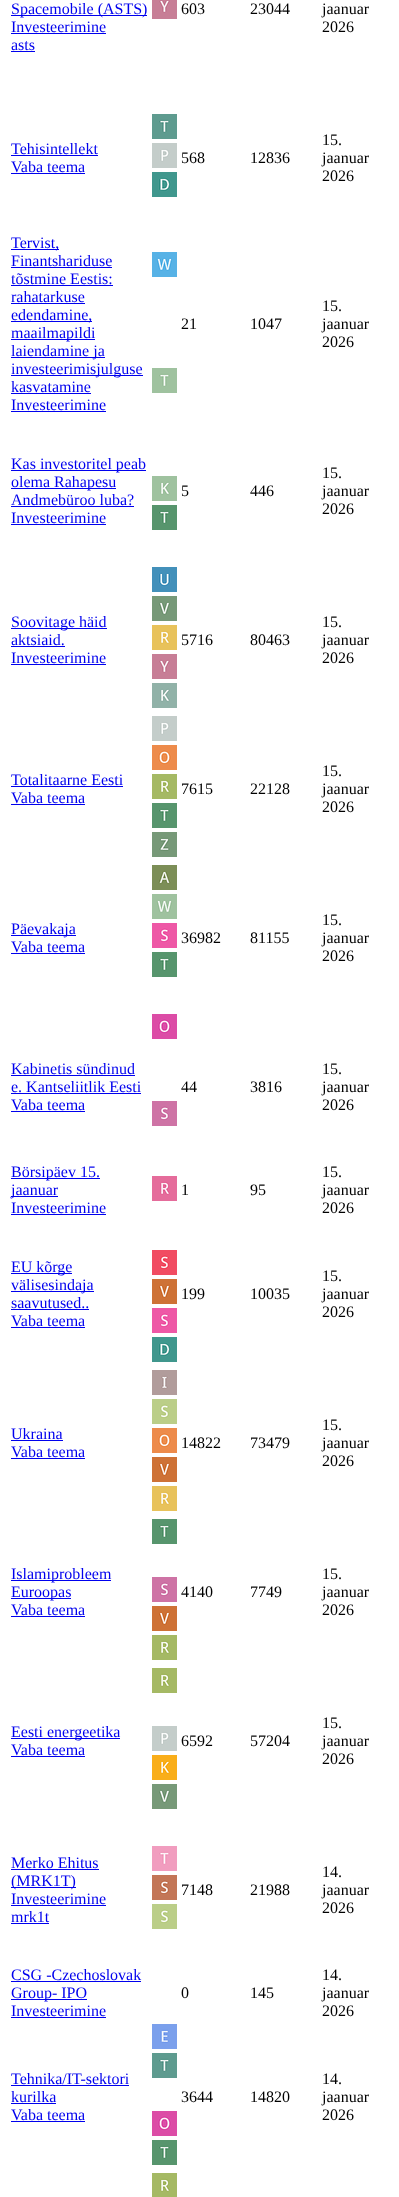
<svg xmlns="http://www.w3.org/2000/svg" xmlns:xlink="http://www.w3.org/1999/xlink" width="399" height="2197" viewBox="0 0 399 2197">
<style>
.cls-1{font:16px Liberation Serif;fill:#0000ee}
.cls-2{font:16px Liberation Serif;fill:#000000}
</style>
<rect width="100%" height="100%" fill="#ffffff"/>
<rect fill="#0000ee" x="11" y="15" width="136" height="1"/>
<rect fill="#0000ee" x="11" y="33" width="95" height="1"/>
<rect fill="#0000ee" x="11" y="51" width="24" height="1"/>
<image xlink:href="image0.png" x="152" y="0" width="25" height="19"/>
<rect fill="#0000ee" x="11" y="155" width="87" height="1"/>
<rect fill="#0000ee" x="11" y="173" width="74" height="1"/>
<image xlink:href="image1.png" x="152" y="114" width="25" height="25"/>
<image xlink:href="image2.png" x="152" y="143" width="25" height="25"/>
<image xlink:href="image3.png" x="152" y="172" width="25" height="25"/>
<rect fill="#0000ee" x="11" y="249" width="48" height="1"/>
<rect fill="#0000ee" x="11" y="267" width="101" height="1"/>
<rect fill="#0000ee" x="11" y="285" width="102" height="1"/>
<rect fill="#0000ee" x="11" y="303" width="74" height="1"/>
<rect fill="#0000ee" x="11" y="321" width="81" height="1"/>
<rect fill="#0000ee" x="11" y="339" width="84" height="1"/>
<rect fill="#0000ee" x="11" y="357" width="94" height="1"/>
<rect fill="#0000ee" x="11" y="375" width="132" height="1"/>
<rect fill="#0000ee" x="11" y="393" width="80" height="1"/>
<rect fill="#0000ee" x="11" y="411" width="95" height="1"/>
<image xlink:href="image4.png" x="152" y="252" width="25" height="25"/>
<image xlink:href="image5.png" x="152" y="368" width="25" height="25"/>
<rect fill="#0000ee" x="11" y="470" width="135" height="1"/>
<rect fill="#0000ee" x="11" y="488" width="105" height="1"/>
<rect fill="#0000ee" x="11" y="506" width="123" height="1"/>
<rect fill="#0000ee" x="11" y="524" width="95" height="1"/>
<image xlink:href="image6.png" x="152" y="476" width="25" height="25"/>
<image xlink:href="image7.png" x="152" y="505" width="25" height="25"/>
<rect fill="#0000ee" x="11" y="628" width="96" height="1"/>
<rect fill="#0000ee" x="11" y="646" width="54" height="1"/>
<rect fill="#0000ee" x="11" y="664" width="95" height="1"/>
<image xlink:href="image8.png" x="152" y="567" width="25" height="25"/>
<image xlink:href="image9.png" x="152" y="596" width="25" height="25"/>
<image xlink:href="image10.png" x="152" y="625" width="25" height="25"/>
<image xlink:href="image11.png" x="152" y="654" width="25" height="25"/>
<image xlink:href="image12.png" x="152" y="683" width="25" height="25"/>
<rect fill="#0000ee" x="11" y="786" width="112" height="1"/>
<rect fill="#0000ee" x="11" y="804" width="74" height="1"/>
<image xlink:href="image2.png" x="152" y="716" width="25" height="25"/>
<image xlink:href="image13.png" x="152" y="745" width="25" height="25"/>
<image xlink:href="image14.png" x="152" y="774" width="25" height="25"/>
<image xlink:href="image7.png" x="152" y="803" width="25" height="25"/>
<image xlink:href="image15.png" x="152" y="832" width="25" height="25"/>
<rect fill="#0000ee" x="11" y="935" width="65" height="1"/>
<rect fill="#0000ee" x="11" y="953" width="74" height="1"/>
<image xlink:href="image16.png" x="152" y="865" width="25" height="25"/>
<image xlink:href="image17.png" x="152" y="894" width="25" height="25"/>
<image xlink:href="image18.png" x="152" y="923" width="25" height="25"/>
<image xlink:href="image7.png" x="152" y="952" width="25" height="25"/>
<rect fill="#0000ee" x="11" y="1075" width="124" height="1"/>
<rect fill="#0000ee" x="11" y="1093" width="130" height="1"/>
<rect fill="#0000ee" x="11" y="1111" width="74" height="1"/>
<image xlink:href="image19.png" x="152" y="1014" width="25" height="25"/>
<image xlink:href="image20.png" x="152" y="1101" width="25" height="25"/>
<rect fill="#0000ee" x="11" y="1178" width="89" height="1"/>
<rect fill="#0000ee" x="11" y="1196" width="47" height="1"/>
<rect fill="#0000ee" x="11" y="1214" width="95" height="1"/>
<image xlink:href="image21.png" x="152" y="1176" width="25" height="25"/>
<rect fill="#0000ee" x="11" y="1273" width="61" height="1"/>
<rect fill="#0000ee" x="11" y="1291" width="83" height="1"/>
<rect fill="#0000ee" x="11" y="1309" width="78" height="1"/>
<rect fill="#0000ee" x="11" y="1327" width="74" height="1"/>
<image xlink:href="image22.png" x="152" y="1250" width="25" height="25"/>
<image xlink:href="image23.png" x="152" y="1279" width="25" height="25"/>
<image xlink:href="image18.png" x="152" y="1308" width="25" height="25"/>
<image xlink:href="image3.png" x="152" y="1337" width="25" height="25"/>
<rect fill="#0000ee" x="11" y="1440" width="52" height="1"/>
<rect fill="#0000ee" x="11" y="1458" width="74" height="1"/>
<image xlink:href="image24.png" x="152" y="1370" width="25" height="25"/>
<image xlink:href="image25.png" x="152" y="1399" width="25" height="25"/>
<image xlink:href="image13.png" x="152" y="1428" width="25" height="25"/>
<image xlink:href="image23.png" x="152" y="1457" width="25" height="25"/>
<image xlink:href="image10.png" x="152" y="1486" width="25" height="25"/>
<rect fill="#0000ee" x="11" y="1580" width="100" height="1"/>
<rect fill="#0000ee" x="11" y="1598" width="60" height="1"/>
<rect fill="#0000ee" x="11" y="1616" width="74" height="1"/>
<image xlink:href="image7.png" x="152" y="1519" width="25" height="25"/>
<image xlink:href="image20.png" x="152" y="1577" width="25" height="25"/>
<image xlink:href="image23.png" x="152" y="1606" width="25" height="25"/>
<image xlink:href="image14.png" x="152" y="1635" width="25" height="25"/>
<rect fill="#0000ee" x="11" y="1738" width="109" height="1"/>
<rect fill="#0000ee" x="11" y="1756" width="74" height="1"/>
<image xlink:href="image14.png" x="152" y="1668" width="25" height="25"/>
<image xlink:href="image2.png" x="152" y="1726" width="25" height="25"/>
<image xlink:href="image26.png" x="152" y="1755" width="25" height="25"/>
<image xlink:href="image9.png" x="152" y="1784" width="25" height="25"/>
<rect fill="#0000ee" x="11" y="1869" width="88" height="1"/>
<rect fill="#0000ee" x="11" y="1887" width="65" height="1"/>
<rect fill="#0000ee" x="11" y="1905" width="95" height="1"/>
<rect fill="#0000ee" x="11" y="1923" width="38" height="1"/>
<image xlink:href="image27.png" x="152" y="1846" width="25" height="25"/>
<image xlink:href="image28.png" x="152" y="1875" width="25" height="25"/>
<image xlink:href="image25.png" x="152" y="1904" width="25" height="25"/>
<rect fill="#0000ee" x="11" y="1981" width="130" height="1"/>
<rect fill="#0000ee" x="11" y="1999" width="76" height="1"/>
<rect fill="#0000ee" x="11" y="2017" width="95" height="1"/>
<rect fill="#0000ee" x="11" y="2085" width="118" height="1"/>
<rect fill="#0000ee" x="11" y="2103" width="45" height="1"/>
<rect fill="#0000ee" x="11" y="2121" width="74" height="1"/>
<image xlink:href="image29.png" x="152" y="2024" width="25" height="25"/>
<image xlink:href="image1.png" x="152" y="2053" width="25" height="25"/>
<image xlink:href="image19.png" x="152" y="2111" width="25" height="25"/>
<image xlink:href="image7.png" x="152" y="2140" width="25" height="25"/>
<image xlink:href="image30.png" x="152" y="2173" width="25" height="24"/>
<text class="cls-1"><tspan x="11" y="14">Spacemobile (ASTS)</tspan><tspan x="11" y="32">Investeerimine</tspan><tspan x="11" y="50">asts</tspan></text>
<text class="cls-2" x="181" y="14">603</text>
<text class="cls-2" x="250" y="14">23044</text>
<text class="cls-2"><tspan x="322" y="14">jaanuar</tspan><tspan x="322" y="32">2026</tspan></text>
<text class="cls-1"><tspan x="11" y="154">Tehisintellekt</tspan><tspan x="11" y="172">Vaba teema</tspan></text>
<text class="cls-2" x="181" y="163">568</text>
<text class="cls-2" x="250" y="163">12836</text>
<text class="cls-2"><tspan x="322" y="145">15.</tspan><tspan x="322" y="163">jaanuar</tspan><tspan x="322" y="181">2026</tspan></text>
<text class="cls-1"><tspan x="11" y="248">Tervist,</tspan><tspan x="11" y="266">Finantshariduse</tspan><tspan x="11" y="284">tõstmine Eestis:</tspan><tspan x="11" y="302">rahatarkuse</tspan><tspan x="11" y="320">edendamine,</tspan><tspan x="11" y="338">maailmapildi</tspan><tspan x="11" y="356">laiendamine ja</tspan><tspan x="11" y="374">investeerimisjulguse</tspan><tspan x="11" y="392">kasvatamine</tspan><tspan x="11" y="410">Investeerimine</tspan></text>
<text class="cls-2" x="181" y="329">21</text>
<text class="cls-2" x="250" y="329">1047</text>
<text class="cls-2"><tspan x="322" y="311">15.</tspan><tspan x="322" y="329">jaanuar</tspan><tspan x="322" y="347">2026</tspan></text>
<text class="cls-1"><tspan x="11" y="469">Kas investoritel peab</tspan><tspan x="11" y="487">olema Rahapesu</tspan><tspan x="11" y="505">Andmebüroo luba?</tspan><tspan x="11" y="523">Investeerimine</tspan></text>
<text class="cls-2" x="181" y="496">5</text>
<text class="cls-2" x="250" y="496">446</text>
<text class="cls-2"><tspan x="322" y="478">15.</tspan><tspan x="322" y="496">jaanuar</tspan><tspan x="322" y="514">2026</tspan></text>
<text class="cls-1"><tspan x="11" y="627">Soovitage häid</tspan><tspan x="11" y="645">aktsiaid.</tspan><tspan x="11" y="663">Investeerimine</tspan></text>
<text class="cls-2" x="181" y="645">5716</text>
<text class="cls-2" x="250" y="645">80463</text>
<text class="cls-2"><tspan x="322" y="627">15.</tspan><tspan x="322" y="645">jaanuar</tspan><tspan x="322" y="663">2026</tspan></text>
<text class="cls-1"><tspan x="11" y="785">Totalitaarne Eesti</tspan><tspan x="11" y="803">Vaba teema</tspan></text>
<text class="cls-2" x="181" y="794">7615</text>
<text class="cls-2" x="250" y="794">22128</text>
<text class="cls-2"><tspan x="322" y="776">15.</tspan><tspan x="322" y="794">jaanuar</tspan><tspan x="322" y="812">2026</tspan></text>
<text class="cls-1"><tspan x="11" y="934">Päevakaja</tspan><tspan x="11" y="952">Vaba teema</tspan></text>
<text class="cls-2" x="181" y="943">36982</text>
<text class="cls-2" x="250" y="943">81155</text>
<text class="cls-2"><tspan x="322" y="925">15.</tspan><tspan x="322" y="943">jaanuar</tspan><tspan x="322" y="961">2026</tspan></text>
<text class="cls-1"><tspan x="11" y="1074">Kabinetis sündinud</tspan><tspan x="11" y="1092">e. Kantseliitlik Eesti</tspan><tspan x="11" y="1110">Vaba teema</tspan></text>
<text class="cls-2" x="181" y="1092">44</text>
<text class="cls-2" x="250" y="1092">3816</text>
<text class="cls-2"><tspan x="322" y="1074">15.</tspan><tspan x="322" y="1092">jaanuar</tspan><tspan x="322" y="1110">2026</tspan></text>
<text class="cls-1"><tspan x="11" y="1177">Börsipäev 15.</tspan><tspan x="11" y="1195">jaanuar</tspan><tspan x="11" y="1213">Investeerimine</tspan></text>
<text class="cls-2" x="181" y="1195">1</text>
<text class="cls-2" x="250" y="1195">95</text>
<text class="cls-2"><tspan x="322" y="1177">15.</tspan><tspan x="322" y="1195">jaanuar</tspan><tspan x="322" y="1213">2026</tspan></text>
<text class="cls-1"><tspan x="11" y="1272">EU kõrge</tspan><tspan x="11" y="1290">välisesindaja</tspan><tspan x="11" y="1308">saavutused..</tspan><tspan x="11" y="1326">Vaba teema</tspan></text>
<text class="cls-2" x="181" y="1299">199</text>
<text class="cls-2" x="250" y="1299">10035</text>
<text class="cls-2"><tspan x="322" y="1281">15.</tspan><tspan x="322" y="1299">jaanuar</tspan><tspan x="322" y="1317">2026</tspan></text>
<text class="cls-1"><tspan x="11" y="1439">Ukraina</tspan><tspan x="11" y="1457">Vaba teema</tspan></text>
<text class="cls-2" x="181" y="1448">14822</text>
<text class="cls-2" x="250" y="1448">73479</text>
<text class="cls-2"><tspan x="322" y="1430">15.</tspan><tspan x="322" y="1448">jaanuar</tspan><tspan x="322" y="1466">2026</tspan></text>
<text class="cls-1"><tspan x="11" y="1579">Islamiprobleem</tspan><tspan x="11" y="1597">Euroopas</tspan><tspan x="11" y="1615">Vaba teema</tspan></text>
<text class="cls-2" x="181" y="1597">4140</text>
<text class="cls-2" x="250" y="1597">7749</text>
<text class="cls-2"><tspan x="322" y="1579">15.</tspan><tspan x="322" y="1597">jaanuar</tspan><tspan x="322" y="1615">2026</tspan></text>
<text class="cls-1"><tspan x="11" y="1737">Eesti energeetika</tspan><tspan x="11" y="1755">Vaba teema</tspan></text>
<text class="cls-2" x="181" y="1746">6592</text>
<text class="cls-2" x="250" y="1746">57204</text>
<text class="cls-2"><tspan x="322" y="1728">15.</tspan><tspan x="322" y="1746">jaanuar</tspan><tspan x="322" y="1764">2026</tspan></text>
<text class="cls-1"><tspan x="11" y="1868">Merko Ehitus</tspan><tspan x="11" y="1886">(MRK1T)</tspan><tspan x="11" y="1904">Investeerimine</tspan><tspan x="11" y="1922">mrk1t</tspan></text>
<text class="cls-2" x="181" y="1895">7148</text>
<text class="cls-2" x="250" y="1895">21988</text>
<text class="cls-2"><tspan x="322" y="1877">14.</tspan><tspan x="322" y="1895">jaanuar</tspan><tspan x="322" y="1913">2026</tspan></text>
<text class="cls-1"><tspan x="11" y="1980">CSG -Czechoslovak</tspan><tspan x="11" y="1998">Group- IPO</tspan><tspan x="11" y="2016">Investeerimine</tspan></text>
<text class="cls-2" x="181" y="1998">0</text>
<text class="cls-2" x="250" y="1998">145</text>
<text class="cls-2"><tspan x="322" y="1980">14.</tspan><tspan x="322" y="1998">jaanuar</tspan><tspan x="322" y="2016">2026</tspan></text>
<text class="cls-1"><tspan x="11" y="2084">Tehnika/IT-sektori</tspan><tspan x="11" y="2102">kurilka</tspan><tspan x="11" y="2120">Vaba teema</tspan></text>
<text class="cls-2" x="181" y="2102">3644</text>
<text class="cls-2" x="250" y="2102">14820</text>
<text class="cls-2"><tspan x="322" y="2084">14.</tspan><tspan x="322" y="2102">jaanuar</tspan><tspan x="322" y="2120">2026</tspan></text>
</svg>
